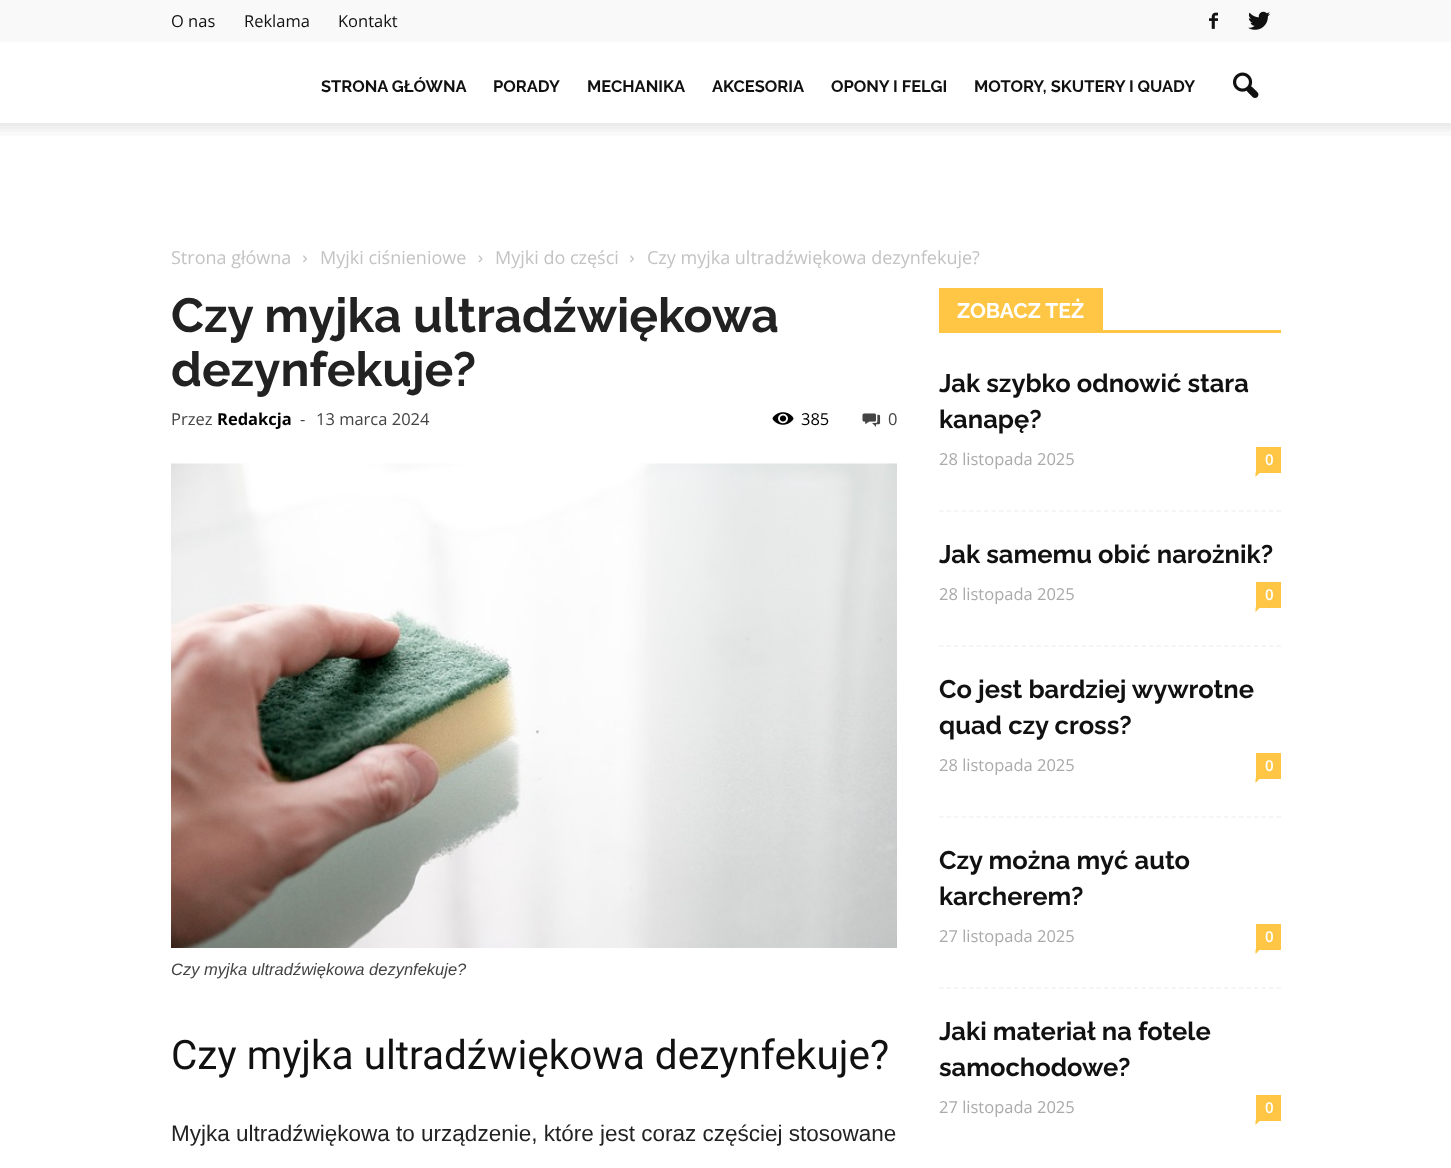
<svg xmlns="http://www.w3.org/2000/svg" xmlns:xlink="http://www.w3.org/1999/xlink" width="1451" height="1168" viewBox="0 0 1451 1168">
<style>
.cls-1{font:16.5px Open Sans;fill:#111111}
.cls-2{font:bold 16.5px Raleway;fill:#111111}
.cls-3{font:18px Open Sans;fill:#c3c3c3}
.cls-4{font:bold 48px Raleway;fill:#222222}
.cls-5{font:16.5px Open Sans;fill:#444444}
.cls-6{font:bold 16.5px Open Sans;fill:#000000}
.cls-7{font:16.5px Open Sans;fill:#000000}
.cls-8{font:italic 16.5px Liberation Sans;fill:#444444}
.cls-9{font:40.5px Roboto;fill:#111111}
.cls-10{font:22.5px Liberation Sans;fill:#222222}
.cls-11{font:bold 21px Raleway;fill:#ffffff}
.cls-12{font:bold 25.5px Raleway;fill:#111111}
.cls-13{font:16.5px Open Sans;fill:#aaaaaa}
.cls-14{font:600 15px Open Sans;fill:#ffffff}
</style>
<rect width="100%" height="100%" fill="#ffffff"/>
<rect fill="#f9f9f9" x="0" y="0" width="1451" height="42"/>
<image xlink:href="image0.png" x="1209" y="12" width="9" height="17"/>
<image xlink:href="image1.png" x="1248" y="11" width="22" height="19"/>
<image xlink:href="image2.png" x="1233" y="72" width="26" height="26"/>
<image xlink:href="image3.png" x="0" y="123" width="1451" height="13"/>
<image xlink:href="image4.png" x="303" y="255" width="4" height="8"/>
<image xlink:href="image5.png" x="478" y="255" width="5" height="8"/>
<image xlink:href="image4.png" x="630" y="255" width="4" height="8"/>
<image xlink:href="image6.png" x="772" y="412" width="22" height="13"/>
<image xlink:href="image7.png" x="862" y="413" width="19" height="14"/>
<image xlink:href="image8.png" x="171" y="463" width="726" height="485"/>
<rect fill="#ffc646" x="939" y="330" width="342" height="3"/>
<rect fill="#ffc646" x="939" y="288" width="164" height="42"/>
<path fill="none" stroke="#f2f2f2" stroke-width="1.5" stroke-dasharray="4.5 3" d="M939 511H1281"/>
<rect fill="#ffc646" x="1256" y="447" width="25" height="26"/>
<path fill="#ffc646" d="M1255.5 472.5H1260L1255.5 477Z"/>
<path fill="none" stroke="#f2f2f2" stroke-width="1.5" stroke-dasharray="4.5 3" d="M939 646H1281"/>
<rect fill="#ffc646" x="1256" y="582" width="25" height="26"/>
<path fill="#ffc646" d="M1255.5 607.5H1260L1255.5 612Z"/>
<path fill="none" stroke="#f2f2f2" stroke-width="1.5" stroke-dasharray="4.5 3" d="M939 817H1281"/>
<rect fill="#ffc646" x="1256" y="753" width="25" height="26"/>
<path fill="#ffc646" d="M1255.5 778.5H1260L1255.5 783Z"/>
<path fill="none" stroke="#f2f2f2" stroke-width="1.5" stroke-dasharray="4.5 3" d="M939 988H1281"/>
<rect fill="#ffc646" x="1256" y="924" width="25" height="26"/>
<path fill="#ffc646" d="M1255.5 949.5H1260L1255.5 954Z"/>
<rect fill="#ffc646" x="1256" y="1095" width="25" height="26"/>
<path fill="#ffc646" d="M1255.5 1120.5H1260L1255.5 1125Z"/>
<text class="cls-1" x="171" y="27">O nas</text>
<text class="cls-1" x="244" y="27">Reklama</text>
<text class="cls-1" x="338" y="27">Kontakt</text>
<text class="cls-2" x="321" y="92">STRONA GŁÓWNA</text>
<text class="cls-2" x="493" y="92">PORADY</text>
<text class="cls-2" x="587" y="92">MECHANIKA</text>
<text class="cls-2" x="712" y="92">AKCESORIA</text>
<text class="cls-2" x="831" y="92">OPONY I FELGI</text>
<text class="cls-2" x="974" y="92">MOTORY, SKUTERY I QUADY</text>
<text class="cls-3" x="171" y="264">Strona główna</text>
<text class="cls-3" x="320" y="264">Myjki ciśnieniowe</text>
<text class="cls-3" x="495" y="264">Myjki do części</text>
<text class="cls-3" x="647" y="264">Czy myjka ultradźwiękowa dezynfekuje?</text>
<text class="cls-4"><tspan x="171" y="332">Czy myjka ultradźwiękowa</tspan><tspan x="171" y="386">dezynfekuje?</tspan></text>
<text class="cls-5" x="171" y="425">Przez</text>
<text class="cls-6" x="217" y="425">Redakcja</text>
<text class="cls-5" x="300" y="425">-</text>
<text class="cls-5" x="316" y="425">13 marca 2024</text>
<text class="cls-7" x="801" y="425">385</text>
<text class="cls-5" x="888" y="425">0</text>
<text class="cls-8" x="171" y="975">Czy myjka ultradźwiękowa dezynfekuje?</text>
<text class="cls-9" x="171" y="1069">Czy myjka ultradźwiękowa dezynfekuje?</text>
<text class="cls-10" x="171" y="1141">Myjka ultradźwiękowa to urządzenie, które jest coraz częściej stosowane</text>
<text class="cls-11" x="957" y="318">ZOBACZ TEŻ</text>
<text class="cls-12"><tspan x="939" y="392">Jak szybko odnowić stara</tspan><tspan x="939" y="428">kanapę?</tspan></text>
<text class="cls-13" x="939" y="465">28 listopada 2025</text>
<text class="cls-14" x="1265" y="465">0</text>
<text class="cls-12" x="939" y="563">Jak samemu obić narożnik?</text>
<text class="cls-13" x="939" y="600">28 listopada 2025</text>
<text class="cls-14" x="1265" y="600">0</text>
<text class="cls-12"><tspan x="939" y="698">Co jest bardziej wywrotne</tspan><tspan x="939" y="734">quad czy cross?</tspan></text>
<text class="cls-13" x="939" y="771">28 listopada 2025</text>
<text class="cls-14" x="1265" y="771">0</text>
<text class="cls-12"><tspan x="939" y="869">Czy można myć auto</tspan><tspan x="939" y="905">karcherem?</tspan></text>
<text class="cls-13" x="939" y="942">27 listopada 2025</text>
<text class="cls-14" x="1265" y="942">0</text>
<text class="cls-12"><tspan x="939" y="1040">Jaki materiał na fotele</tspan><tspan x="939" y="1076">samochodowe?</tspan></text>
<text class="cls-13" x="939" y="1113">27 listopada 2025</text>
<text class="cls-14" x="1265" y="1113">0</text>
</svg>
